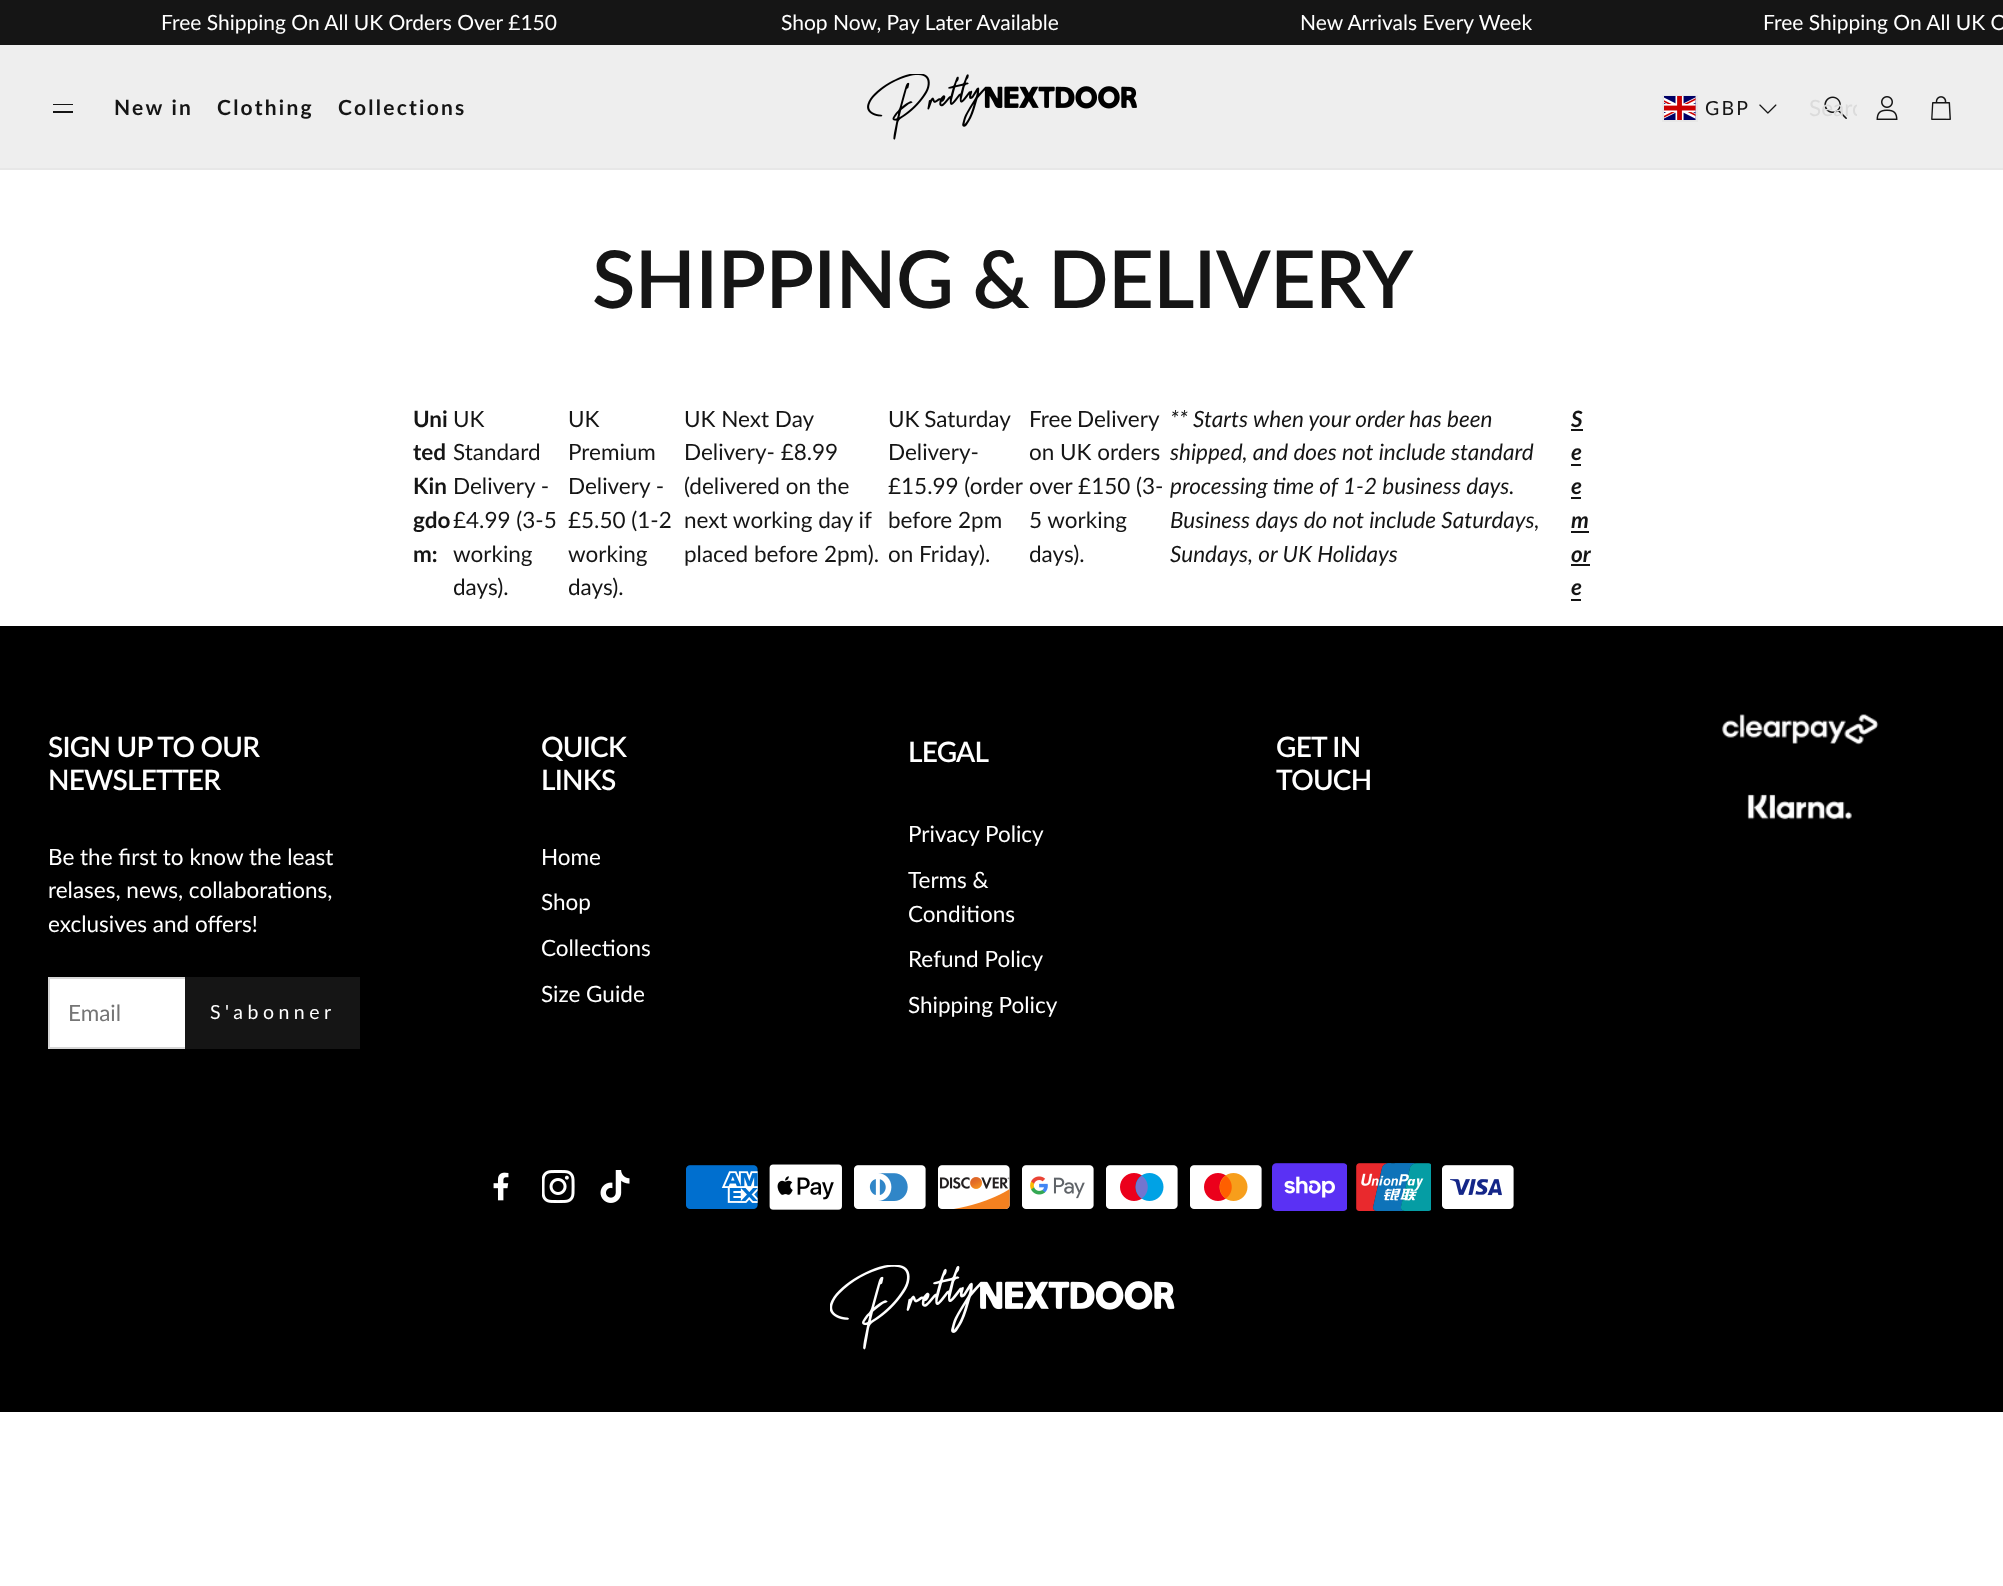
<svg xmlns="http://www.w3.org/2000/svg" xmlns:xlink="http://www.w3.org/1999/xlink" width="2003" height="1586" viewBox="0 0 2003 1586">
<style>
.cls-1{font:21px Lato;fill:#ffffff}
.cls-2{font:bold 21px Lato;letter-spacing:2.25px;fill:#151515}
.cls-3{font:19.5px Lato;letter-spacing:2.25px;fill:#151515}
.cls-4{font:22.5px Lato;fill:#dbdbdb}
.cls-5{font:600 79.75px Lato;letter-spacing:-0.75px;fill:#151515}
.cls-6{font:bold 22.5px Lato;fill:#151515}
.cls-7{font:22.5px Lato;fill:#151515}
.cls-8{font:italic 22.5px Lato;fill:#151515}
.cls-9{font:italic bold 22.5px Lato;fill:#151515}
.cls-10{font:600 28px Lato;letter-spacing:-0.75px;fill:#ffffff}
.cls-11{font:22.5px Lato;fill:#ffffff}
.cls-12{font:22.5px Lato;fill:#757575}
.cls-13{font:19.5px Lato;letter-spacing:4.5px;fill:#ffffff}
</style>
<defs>
<clipPath id="clip1"><rect x="1809" y="93" width="48" height="27"/></clipPath>
</defs>
<rect width="100%" height="100%" fill="#ffffff"/>
<rect fill="#151515" x="0" y="0" width="2003" height="45"/>
<rect fill="#eeeeee" x="0" y="45" width="2003" height="123"/>
<rect fill="#e7e7e7" x="0" y="168" width="2003" height="2"/>
<rect fill="#151515" x="53" y="104" width="20" height="1"/>
<rect fill="#151515" x="53" y="111" width="20" height="2"/>
<image xlink:href="image0.png" x="867" y="74" width="270" height="66"/>
<rect fill="none" stroke="#e7e7e7" stroke-width="2" x="1663" y="96" width="34" height="25"/>
<image xlink:href="image1.png" x="1664" y="96" width="32" height="24"/>
<image xlink:href="image2.png" x="1759" y="104" width="18" height="10"/>
<image xlink:href="image3.png" x="1824" y="96" width="23" height="23"/>
<image xlink:href="image4.png" x="1876" y="96" width="22" height="24"/>
<image xlink:href="image5.png" x="1931" y="96" width="20" height="24"/>
<rect fill="#151515" x="1571" y="429" width="12" height="2"/>
<rect fill="#151515" x="1571" y="464" width="10" height="2"/>
<rect fill="#151515" x="1571" y="497" width="10" height="2"/>
<rect fill="#151515" x="1571" y="531" width="18" height="2"/>
<rect fill="#151515" x="1571" y="564" width="19" height="2"/>
<rect fill="#151515" x="1571" y="599" width="10" height="2"/>
<rect fill="#000000" x="0" y="626" width="2003" height="786"/>
<rect fill="#ffffff" x="50" y="979" width="135" height="68"/>
<rect fill="#d6d6d6" x="48" y="977" width="137" height="2"/>
<rect fill="#d6d6d6" x="48" y="1047" width="137" height="2"/>
<rect fill="#d6d6d6" x="48" y="977" width="2" height="72"/>
<rect fill="#151515" x="185" y="977" width="175" height="72"/>
<image xlink:href="image6.png" x="1721" y="714" width="158" height="31"/>
<image xlink:href="image7.png" x="1747" y="794" width="105" height="26"/>
<image xlink:href="image8.png" x="493" y="1172" width="16" height="29"/>
<image xlink:href="image9.png" x="542" y="1170" width="33" height="33"/>
<image xlink:href="image10.png" x="600" y="1170" width="30" height="33"/>
<image xlink:href="image11.png" x="686" y="1165" width="72" height="44"/>
<image xlink:href="image12.png" x="769" y="1164" width="73" height="46"/>
<image xlink:href="image13.png" x="854" y="1165" width="72" height="44"/>
<image xlink:href="image14.png" x="938" y="1165" width="72" height="44"/>
<image xlink:href="image15.png" x="1022" y="1165" width="72" height="44"/>
<image xlink:href="image16.png" x="1106" y="1165" width="72" height="44"/>
<image xlink:href="image17.png" x="1190" y="1165" width="72" height="44"/>
<image xlink:href="image18.png" x="1272" y="1163" width="75" height="48"/>
<image xlink:href="image19.png" x="1356" y="1163" width="75" height="48"/>
<image xlink:href="image20.png" x="1442" y="1165" width="72" height="44"/>
<image xlink:href="image21.png" x="830" y="1265" width="345" height="85"/>
<text class="cls-1" x="161" y="30">Free Shipping On All UK Orders Over £150</text>
<text class="cls-1" x="781" y="30">Shop Now, Pay Later Available</text>
<text class="cls-1" x="1300" y="30">New Arrivals Every Week</text>
<text class="cls-1" x="1763" y="30">Free Shipping On All UK O</text>
<text class="cls-2" x="114" y="115">New in</text>
<text class="cls-2" x="217" y="115">Clothing</text>
<text class="cls-2" x="338" y="115">Collections</text>
<text class="cls-3" x="1705" y="115">GBP</text>
<g clip-path="url(#clip1)">
<text class="cls-4" x="1809" y="116">Searc</text>
</g>
<text class="cls-5" x="592" y="308">SHIPPING &amp; DELIVERY</text>
<text class="cls-6"><tspan x="413" y="427">Uni</tspan><tspan x="413" y="460">ted</tspan><tspan x="413" y="494">Kin</tspan><tspan x="413" y="528">gdo</tspan><tspan x="413" y="562">m:</tspan></text>
<text class="cls-7"><tspan x="453" y="427">UK</tspan><tspan x="453" y="460">Standard</tspan><tspan x="453" y="494">Delivery -</tspan><tspan x="453" y="528">£4.99 (3-5</tspan><tspan x="453" y="562">working</tspan><tspan x="453" y="595">days).</tspan></text>
<text class="cls-7"><tspan x="568" y="427">UK</tspan><tspan x="568" y="460">Premium</tspan><tspan x="568" y="494">Delivery -</tspan><tspan x="568" y="528">£5.50 (1-2</tspan><tspan x="568" y="562">working</tspan><tspan x="568" y="595">days).</tspan></text>
<text class="cls-7"><tspan x="684" y="427">UK Next Day</tspan><tspan x="684" y="460">Delivery- £8.99</tspan><tspan x="684" y="494">(delivered on the</tspan><tspan x="684" y="528">next working day if</tspan><tspan x="684" y="562">placed before 2pm).</tspan></text>
<text class="cls-7"><tspan x="888" y="427" word-spacing="-1">UK Saturday</tspan><tspan x="888" y="460">Delivery-</tspan><tspan x="888" y="494">£15.99 (order</tspan><tspan x="888" y="528">before 2pm</tspan><tspan x="888" y="562">on Friday).</tspan></text>
<text class="cls-7"><tspan x="1029" y="427" word-spacing="-1">Free Delivery</tspan><tspan x="1029" y="460">on UK orders</tspan><tspan x="1029" y="494">over £150 (3-</tspan><tspan x="1029" y="528">5 working</tspan><tspan x="1029" y="562">days).</tspan></text>
<text class="cls-8"><tspan x="1170" y="427">** Starts when your order has been</tspan><tspan x="1170" y="460">shipped, and does not include standard</tspan><tspan x="1170" y="494">processing time of 1-2 business days.</tspan><tspan x="1170" y="528">Business days do not include Saturdays,</tspan><tspan x="1170" y="562">Sundays, or UK Holidays</tspan></text>
<text class="cls-9"><tspan x="1571" y="427">S</tspan><tspan x="1571" y="460">e</tspan><tspan x="1571" y="494">e</tspan><tspan x="1571" y="528">m</tspan><tspan x="1571" y="562">or</tspan><tspan x="1571" y="595">e</tspan></text>
<text class="cls-10"><tspan x="48" y="757">SIGN UP TO OUR</tspan><tspan x="48" y="790">NEWSLETTER</tspan></text>
<text class="cls-11"><tspan x="48" y="865">Be the first to know the least</tspan><tspan x="48" y="898">relases, news, collaborations,</tspan><tspan x="48" y="932">exclusives and offers!</tspan></text>
<text class="cls-12" x="68" y="1021">Email</text>
<text class="cls-13" x="210" y="1019">S'abonner</text>
<text class="cls-10"><tspan x="541" y="757">QUICK</tspan><tspan x="541" y="790">LINKS</tspan></text>
<text class="cls-11" x="541" y="865">Home</text>
<text class="cls-11" x="541" y="910">Shop</text>
<text class="cls-11" x="541" y="956">Collections</text>
<text class="cls-11" x="541" y="1002">Size Guide</text>
<text class="cls-10" x="908" y="762">LEGAL</text>
<text class="cls-11" x="908" y="842">Privacy Policy</text>
<text class="cls-11"><tspan x="908" y="888">Terms &amp;</tspan><tspan x="908" y="922">Conditions</tspan></text>
<text class="cls-11" x="908" y="967">Refund Policy</text>
<text class="cls-11" x="908" y="1013">Shipping Policy</text>
<text class="cls-10"><tspan x="1276" y="757">GET IN</tspan><tspan x="1276" y="790">TOUCH</tspan></text>
</svg>
